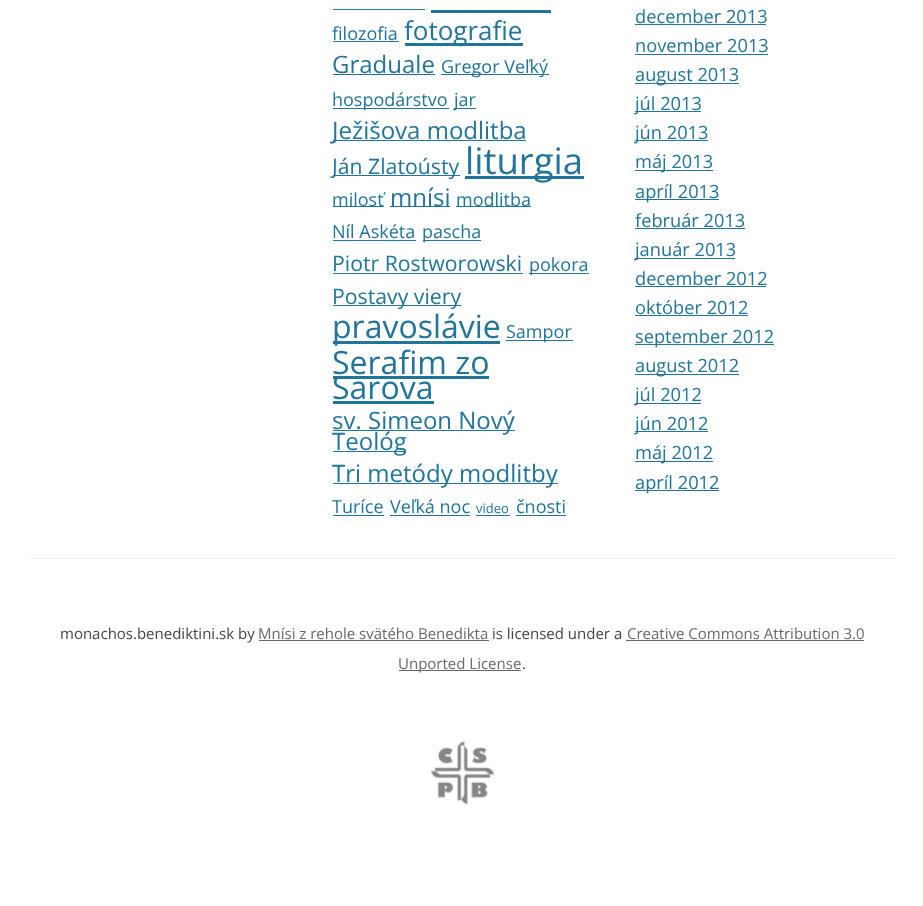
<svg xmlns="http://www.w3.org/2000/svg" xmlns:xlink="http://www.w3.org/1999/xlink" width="923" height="906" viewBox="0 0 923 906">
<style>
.cls-1{font:18px Open Sans;fill:#21759b}
.cls-2{font:26px Open Sans;fill:#21759b}
.cls-3{font:24px Open Sans;fill:#21759b}
.cls-4{font:21.25px Open Sans;fill:#21759b}
.cls-5{font:36.5px Open Sans;fill:#21759b}
.cls-6{font:32px Open Sans;fill:#21759b}
.cls-7{font:13px Open Sans;fill:#21759b}
.cls-8{font:18.25px Open Sans;fill:#21759b}
.cls-9{font:15px Open Sans;fill:#444444}
.cls-10{font:15px Open Sans;fill:#686868}
</style>
<rect width="100%" height="100%" fill="#ffffff"/>
<rect fill="#21759b" x="333" y="9" width="92" height="1"/>
<rect fill="#21759b" x="431" y="10" width="120" height="3"/>
<rect fill="#21759b" x="333" y="41" width="66" height="1"/>
<rect fill="#21759b" x="405" y="43" width="118" height="3"/>
<rect fill="#21759b" x="333" y="74" width="102" height="1"/>
<rect fill="#21759b" x="441" y="74" width="108" height="1"/>
<rect fill="#21759b" x="333" y="108" width="116" height="1"/>
<rect fill="#21759b" x="454" y="108" width="22" height="1"/>
<rect fill="#21759b" x="333" y="140" width="193" height="1"/>
<rect fill="#21759b" x="333" y="175" width="127" height="1"/>
<rect fill="#21759b" x="465" y="176" width="119" height="3"/>
<rect fill="#21759b" x="333" y="206" width="51" height="1"/>
<rect fill="#21759b" x="390" y="206" width="60" height="1"/>
<rect fill="#21759b" x="456" y="206" width="75" height="1"/>
<rect fill="#21759b" x="333" y="240" width="83" height="1"/>
<rect fill="#21759b" x="423" y="240" width="58" height="1"/>
<rect fill="#21759b" x="333" y="273" width="190" height="1"/>
<rect fill="#21759b" x="529" y="273" width="60" height="1"/>
<rect fill="#21759b" x="333" y="305" width="128" height="1"/>
<rect fill="#21759b" x="333" y="341" width="167" height="3"/>
<rect fill="#21759b" x="506" y="340" width="67" height="1"/>
<rect fill="#21759b" x="333" y="376" width="156" height="3"/>
<rect fill="#21759b" x="333" y="401" width="101" height="3"/>
<rect fill="#21759b" x="333" y="430" width="182" height="1"/>
<rect fill="#21759b" x="333" y="451" width="73" height="1"/>
<rect fill="#21759b" x="333" y="483" width="225" height="1"/>
<rect fill="#21759b" x="333" y="515" width="51" height="1"/>
<rect fill="#21759b" x="390" y="515" width="80" height="1"/>
<rect fill="#21759b" x="476" y="515" width="34" height="1"/>
<rect fill="#21759b" x="516" y="515" width="50" height="1"/>
<rect fill="#21759b" x="635" y="24" width="131" height="1"/>
<rect fill="#21759b" x="635" y="54" width="133" height="1"/>
<rect fill="#21759b" x="635" y="83" width="104" height="1"/>
<rect fill="#21759b" x="635" y="111" width="66" height="1"/>
<rect fill="#21759b" x="635" y="140" width="73" height="1"/>
<rect fill="#21759b" x="635" y="170" width="78" height="1"/>
<rect fill="#21759b" x="635" y="199" width="84" height="1"/>
<rect fill="#21759b" x="635" y="228" width="110" height="1"/>
<rect fill="#21759b" x="635" y="258" width="100" height="1"/>
<rect fill="#21759b" x="635" y="286" width="131" height="1"/>
<rect fill="#21759b" x="635" y="315" width="113" height="1"/>
<rect fill="#21759b" x="635" y="344" width="139" height="1"/>
<rect fill="#21759b" x="635" y="374" width="104" height="1"/>
<rect fill="#21759b" x="635" y="403" width="66" height="1"/>
<rect fill="#21759b" x="635" y="431" width="73" height="1"/>
<rect fill="#21759b" x="635" y="461" width="78" height="1"/>
<rect fill="#21759b" x="635" y="490" width="84" height="1"/>
<rect fill="#ededed" x="30" y="558" width="864" height="1"/>
<rect fill="#686868" x="259" y="640" width="230" height="1"/>
<rect fill="#686868" x="626" y="640" width="238" height="1"/>
<rect fill="#686868" x="399" y="670" width="122" height="1"/>
<image xlink:href="image0.png" x="431" y="741" width="63" height="63"/>
<text class="cls-1" x="332" y="40">filozofia</text>
<text class="cls-2" x="404" y="40">fotografie</text>
<text class="cls-3" x="332" y="73">Graduale</text>
<text class="cls-1" x="441" y="73">Gregor Veľký</text>
<text class="cls-1" x="332" y="106">hospodárstvo</text>
<text class="cls-1" x="454" y="106">jar</text>
<text class="cls-3" x="332" y="139">Ježišova modlitba</text>
<text class="cls-4" x="332" y="174">Ján Zlatoústy</text>
<text class="cls-5" x="465" y="174">liturgia</text>
<text class="cls-1" x="332" y="206">milosť</text>
<text class="cls-3" x="390" y="206">mnísi</text>
<text class="cls-1" x="456" y="206">modlitba</text>
<text class="cls-1" x="332" y="238">Níl Askéta</text>
<text class="cls-1" x="422" y="238">pascha</text>
<text class="cls-4" x="332" y="271">Piotr Rostworowski</text>
<text class="cls-1" x="529" y="271">pokora</text>
<text class="cls-4" x="332" y="304">Postavy viery</text>
<text class="cls-6" x="332" y="338">pravoslávie</text>
<text class="cls-1" x="506" y="338">Sampor</text>
<text class="cls-6"><tspan x="332" y="374">Serafim zo</tspan><tspan x="332" y="399">Sarova</tspan></text>
<text class="cls-3"><tspan x="332" y="429">sv. Simeon Nový</tspan><tspan x="332" y="450">Teológ</tspan><tspan x="332" y="482">Tri metódy modlitby</tspan></text>
<text class="cls-1" x="332" y="513">Turíce</text>
<text class="cls-1" x="390" y="513">Veľká noc</text>
<text class="cls-7" x="476" y="513">video</text>
<text class="cls-1" x="516" y="513">čnosti</text>
<text class="cls-8"><tspan x="635" y="23">december 2013</tspan><tspan x="635" y="52">november 2013</tspan><tspan x="635" y="81">august 2013</tspan><tspan x="635" y="110">júl 2013</tspan><tspan x="635" y="139">jún 2013</tspan><tspan x="635" y="168">máj 2013</tspan><tspan x="635" y="198">apríl 2013</tspan><tspan x="635" y="227">február 2013</tspan><tspan x="635" y="256">január 2013</tspan><tspan x="635" y="285">december 2012</tspan><tspan x="635" y="314">október 2012</tspan><tspan x="635" y="343">september 2012</tspan><tspan x="635" y="372">august 2012</tspan><tspan x="635" y="401">júl 2012</tspan><tspan x="635" y="430">jún 2012</tspan><tspan x="635" y="459">máj 2012</tspan><tspan x="635" y="489">apríl 2012</tspan></text>
<text class="cls-9" x="60" y="639">monachos.benediktini.sk by</text>
<text class="cls-10" x="258" y="639">Mnísi z rehole svätého Benedikta</text>
<text class="cls-9" x="492" y="639">is licensed under a</text>
<text class="cls-10" x="627" y="639">Creative Commons Attribution 3.0</text>
<text class="cls-10" x="398" y="669">Unported License</text>
<text class="cls-9" x="522" y="669">.</text>
</svg>
